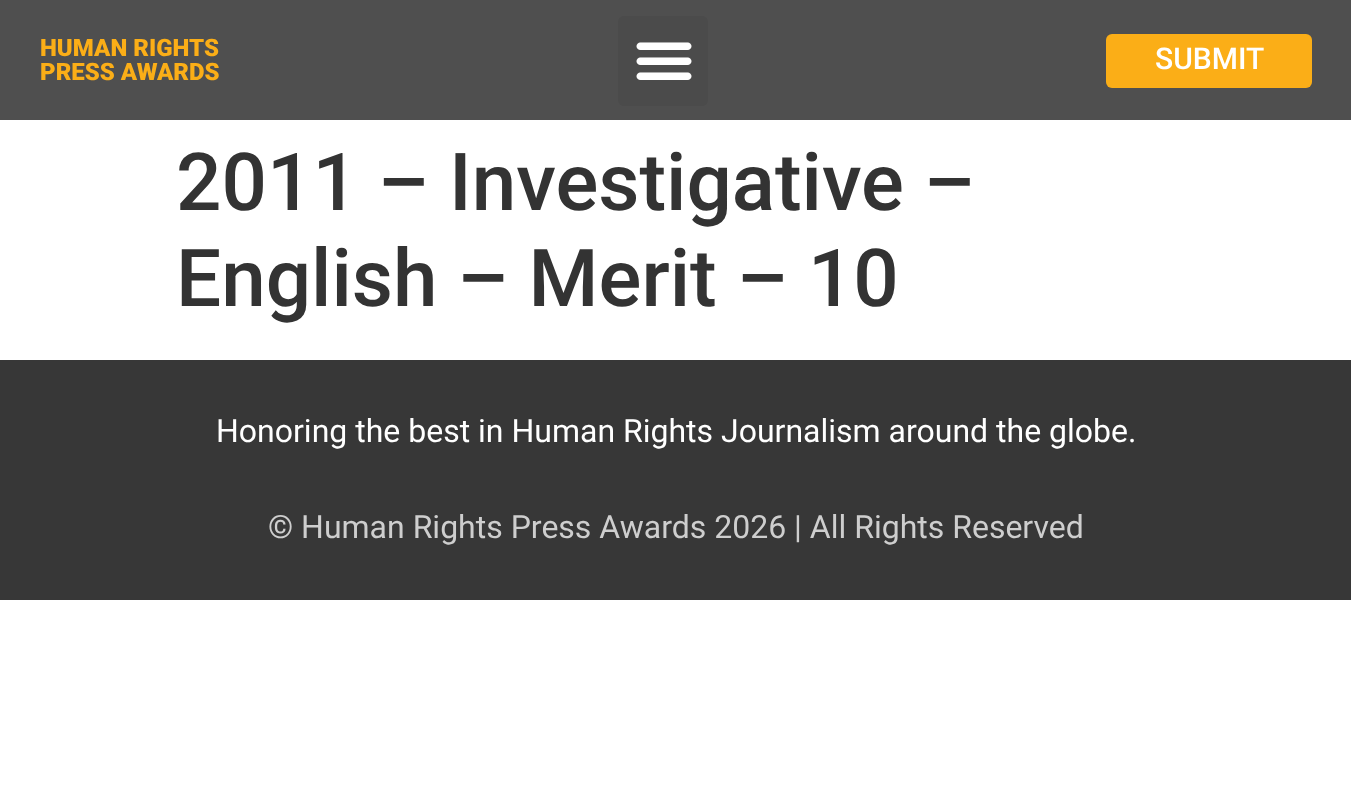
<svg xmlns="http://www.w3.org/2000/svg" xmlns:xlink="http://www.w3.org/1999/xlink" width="1351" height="787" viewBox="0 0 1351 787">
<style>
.cls-1{font:900 24px Roboto;fill:#fbae17}
.cls-2{font:500 30px Roboto;fill:#ffffff}
.cls-3{font:500 80px Roboto;fill:#333333}
.cls-4{font:32px Roboto;fill:#ffffff}
.cls-5{font:32px Roboto;fill:#cecece}
</style>
<rect width="100%" height="100%" fill="#ffffff"/>
<rect fill="#4f4f4f" x="0" y="0" width="1351" height="120"/>
<rect fill="#4b4b4b" x="618" y="16" width="90" height="90" rx="6"/>
<image xlink:href="image0.png" x="636" y="42" width="56" height="38"/>
<rect fill="#fbae17" x="1106" y="34" width="206" height="54" rx="6"/>
<rect fill="#373737" x="0" y="360" width="1351" height="240"/>
<text class="cls-1"><tspan x="40" y="56">HUMAN RIGHTS</tspan><tspan x="40" y="80">PRESS AWARDS</tspan></text>
<text class="cls-2" x="1155" y="69">SUBMIT</text>
<text class="cls-3"><tspan x="176" y="210">2011 – Investigative –</tspan><tspan x="176" y="306">English – Merit – 10</tspan></text>
<text class="cls-4" x="216" y="442">Honoring the best in Human Rights Journalism around the globe.</text>
<text class="cls-5" x="268" y="538">© Human Rights Press Awards 2026 | All Rights Reserved</text>
</svg>
